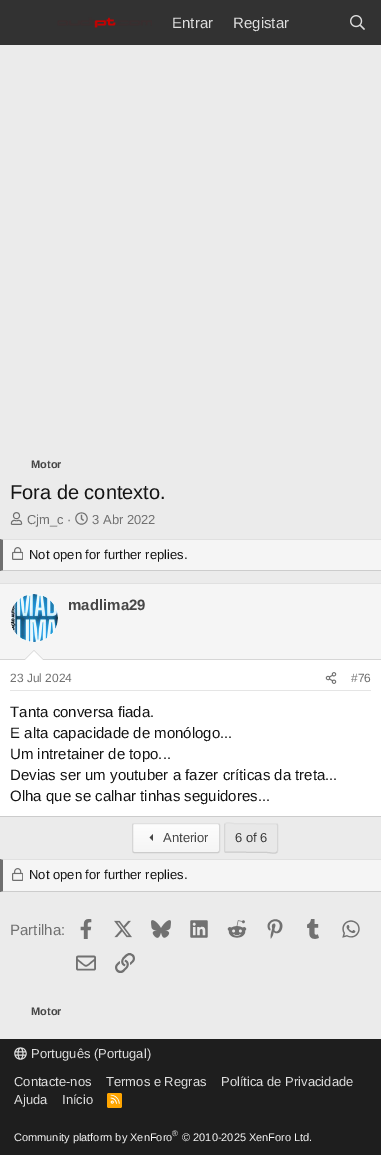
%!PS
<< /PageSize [381 1155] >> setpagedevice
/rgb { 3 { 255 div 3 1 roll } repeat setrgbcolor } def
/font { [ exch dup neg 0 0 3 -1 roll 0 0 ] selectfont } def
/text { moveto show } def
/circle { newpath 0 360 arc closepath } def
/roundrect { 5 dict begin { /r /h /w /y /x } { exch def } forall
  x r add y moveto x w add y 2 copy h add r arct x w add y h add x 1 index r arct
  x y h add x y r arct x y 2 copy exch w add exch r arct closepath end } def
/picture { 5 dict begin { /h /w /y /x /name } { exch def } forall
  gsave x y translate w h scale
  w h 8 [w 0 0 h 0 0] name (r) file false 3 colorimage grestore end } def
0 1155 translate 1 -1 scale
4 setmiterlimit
235 235 235 rgb
0 0 381 1155 rectfill
50 50 50 rgb
0 0 381 45 rectfill
(img_01.rgb) 57 17 95 11 picture
(img_02.rgb) 350 15 15 15 picture
(img_03.rgb) 10 512 13 13 picture
(img_04.rgb) 75 512 13 13 picture
245 245 245 rgb
0 539 381 32 rectfill
224 224 224 rgb
0 539 moveto 381 0 rlineto 0 1 rlineto -378 0 rlineto closepath fill
204 204 204 rgb
381 571 moveto -381 0 rlineto 3 -1 rlineto 378 0 rlineto closepath fill
111 111 111 rgb
0 571 moveto 0 -32 rlineto 3 1 rlineto 0 30 rlineto closepath fill
(img_05.rgb) 12 547 11 13 picture
255 255 255 rgb
0 660 381 156 rectfill
224 224 224 rgb
0 583 381 1 rectfill
204 204 204 rgb
0 816 381 1 rectfill
245 245 245 rgb
0 584 381 75 rectfill
214 214 214 rgb
0 659 381 1 rectfill
255 255 255 rgb
34 618 24 circle fill
(img_06.rgb) 10 594 48 48 picture
214 214 214 rgb
44 660 moveto -20 0 rlineto 10 -10 rlineto closepath fill
255 255 255 rgb
43 660 moveto -18 0 rlineto 9 -9 rlineto closepath fill
229 229 229 rgb
10 690 361 1 rectfill
(img_07.rgb) 325 672 12 12 picture
gsave
132 823 88 30 2 roundrect clip newpath
gsave 132 824 moveto 88 0 rlineto 0 28 rlineto -88 0 rlineto closepath clip newpath
<< /ShadingType 2 /ColorSpace /DeviceRGB /Coords [176 852 176 824] /Extend [true true] /Function << /FunctionType 2 /Domain [0 1] /C0 [0.961 0.961 0.961] /C1 [0.992 0.992 0.992] /N 1 >> >> shfill grestore
grestore
224 224 224 rgb
133 824 moveto 1 -0.5 rlineto 84 0 rlineto 1 0.5 rlineto stroke
214 214 214 rgb
219 824 moveto 0.5 1 rlineto 0 26 rlineto -0.5 1 rlineto stroke
204 204 204 rgb
219 852 moveto -1 0.5 rlineto -84 0 rlineto -1 -0.5 rlineto stroke
214 214 214 rgb
133 852 moveto -0.5 -1 rlineto 0 -26 rlineto 0.5 -1 rlineto stroke
(img_08.rgb) 149 834 4 7 picture
232 232 232 rgb
224 823 54 30 2 roundrect fill
224 224 224 rgb
225 824 moveto 2 -2.5 6 -0.5 9.5 -0.5 rcurveto 42.5 0.5 rlineto stroke
214 214 214 rgb
277 824 moveto 0.5 1 rlineto 0 26 rlineto -0.5 1 rlineto stroke
204 204 204 rgb
277 852 moveto -2 2.5 -6 0.5 -9.5 0.5 rcurveto -42.5 -0.5 rlineto stroke
214 214 214 rgb
225 852 moveto -0.5 -1 rlineto 0 -26 rlineto 0.5 -1 rlineto stroke
245 245 245 rgb
0 859 381 33 rectfill
224 224 224 rgb
0 859 moveto 381 0 rlineto 0 1 rlineto -378 0 rlineto closepath fill
204 204 204 rgb
381 892 moveto -381 0 rlineto 3 -1 rlineto 378 0 rlineto closepath fill
111 111 111 rgb
0 892 moveto 0 -33 rlineto 3 1 rlineto 0 31 rlineto closepath fill
(img_05.rgb) 12 868 11 13 picture
(img_09.rgb) 80 919 12 20 picture
(img_10.rgb) 114 920 18 18 picture
(img_11.rgb) 151 920 20 18 picture
(img_12.rgb) 190 920 18 18 picture
(img_13.rgb) 227 920 20 18 picture
(img_14.rgb) 267 919 16 20 picture
(img_15.rgb) 307 919 12 20 picture
(img_16.rgb) 342 920 18 18 picture
(img_17.rgb) 76 955 20 16 picture
(img_18.rgb) 115 953 20 20 picture
30 30 30 rgb
0 1039 381 116 rectfill
(img_19.rgb) 14 1047 13 13 picture
255 165 0 rgb
107 1093 15 15 2 roundrect fill
(img_20.rgb) 110 1094 10 10 picture
/LiberationSans-Regular 15 font
222 222 222 rgb
(Entrar) 172 28 text
(Registar) 233 28 text
/LiberationSans-Bold 11 font
70 70 70 rgb
(Motor) 31 468 text
/LiberationSans-Regular 20 font
20 20 20 rgb
(Fora de contexto.) 10 499 text
/LiberationSans-Regular 13 font
113 113 113 rgb
(Cjm_c ·) 27 524 text
(3 Abr 2022) 92 524 text
20 20 20 rgb
(Not open for further replies.) 29 559 text
/LiberationSans-Bold 15 font
70 70 70 rgb
(madlima29) 68 610 text
/LiberationSans-Regular 12 font
113 113 113 rgb
(23 Jul 2024) 10 682 text
(#76) 351 682 text
/LiberationSans-Regular 15 font
20 20 20 rgb
(Tanta conversa fiada.) 10 717 text
(E alta capacidade de monólogo...) 10 738 text
(Um intretainer de topo...) 10 759 text
(Devias ser um youtuber a fazer críticas da treta...) 10 780 text
(Olha que se calhar tinhas seguidores...) 10 801 text
/LiberationSans-Regular 13 font
70 70 70 rgb
(Anterior) 163 842 text
55 55 55 rgb
(6 of 6) 235 842 text
20 20 20 rgb
(Not open for further replies.) 29 879 text
/LiberationSans-Regular 15 font
113 113 113 rgb
(Partilha:) 10 935 text
/LiberationSans-Bold 11 font
70 70 70 rgb
(Motor) 31 1015 text
/LiberationSans-Regular 13 font
222 222 222 rgb
(Português \(Portugal\)) 31 1058 text
(Contacte-nos) 14 1086 text
(Termos e Regras) 106 1086 text
(Política de Privacidade) 221 1086 text
(Ajuda) 14 1104 text
(Início) 62 1104 text
/LiberationSans-Regular 11 font
245 245 245 rgb
(Community platform by XenForo) 14 1141 text
/LiberationSans-Regular 8 font
(®) 172 1136 text
/LiberationSans-Regular 11 font
(© 2010-2025 XenForo Ltd.) 182 1141 text
showpage
